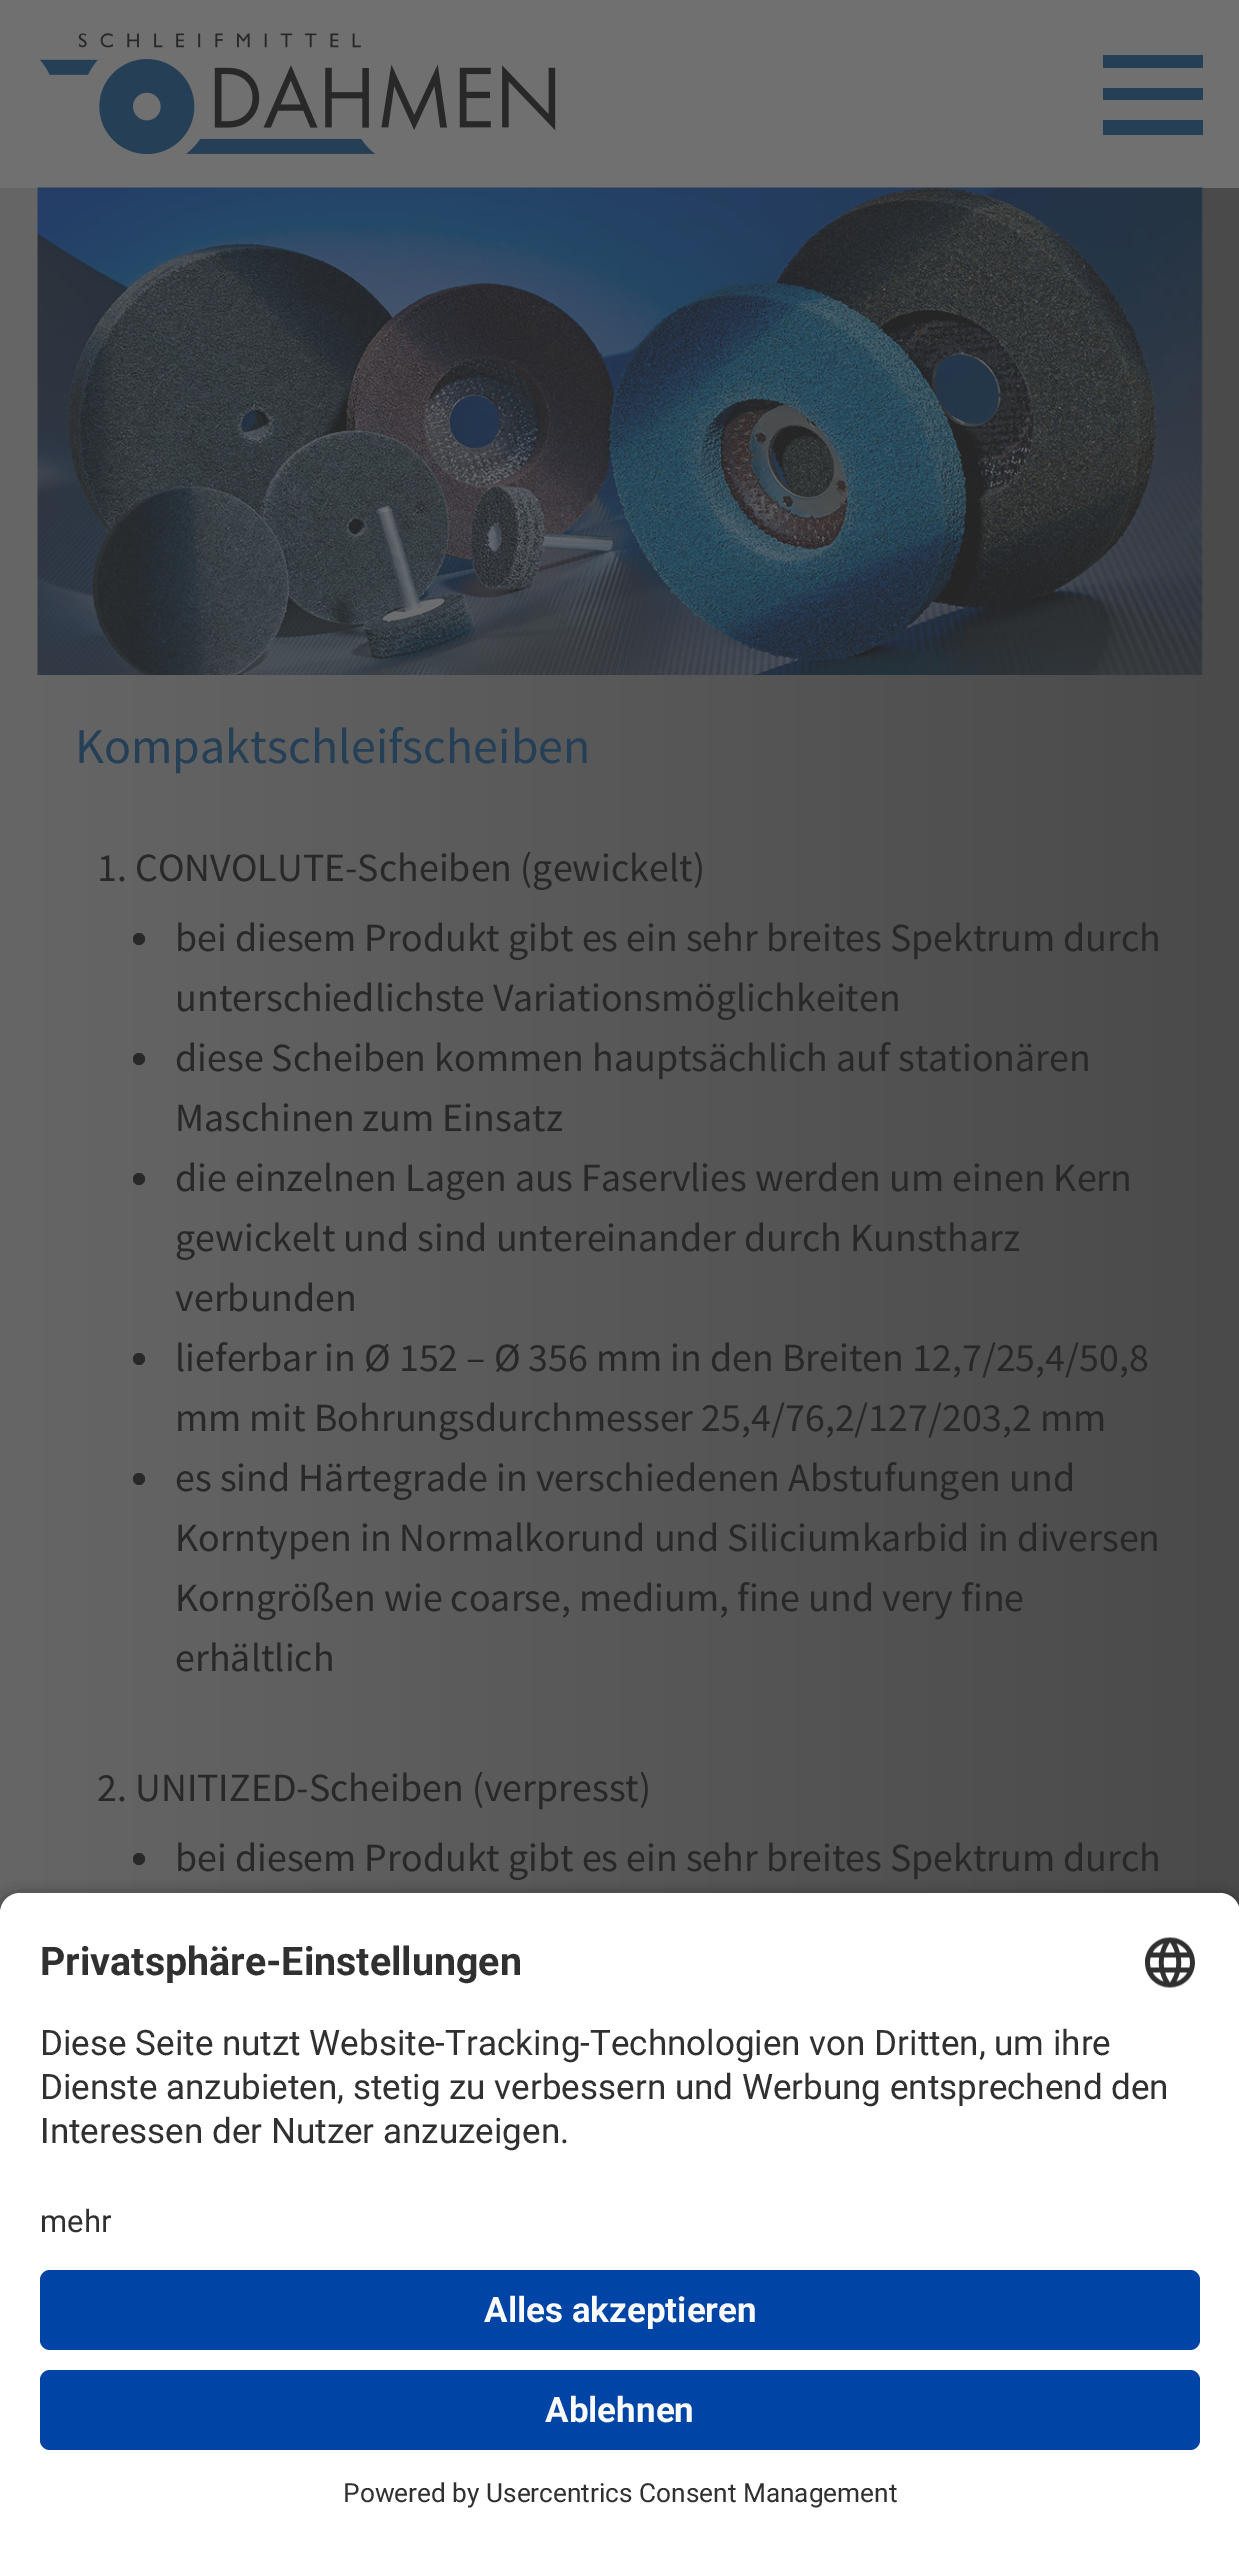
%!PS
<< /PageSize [1239 2550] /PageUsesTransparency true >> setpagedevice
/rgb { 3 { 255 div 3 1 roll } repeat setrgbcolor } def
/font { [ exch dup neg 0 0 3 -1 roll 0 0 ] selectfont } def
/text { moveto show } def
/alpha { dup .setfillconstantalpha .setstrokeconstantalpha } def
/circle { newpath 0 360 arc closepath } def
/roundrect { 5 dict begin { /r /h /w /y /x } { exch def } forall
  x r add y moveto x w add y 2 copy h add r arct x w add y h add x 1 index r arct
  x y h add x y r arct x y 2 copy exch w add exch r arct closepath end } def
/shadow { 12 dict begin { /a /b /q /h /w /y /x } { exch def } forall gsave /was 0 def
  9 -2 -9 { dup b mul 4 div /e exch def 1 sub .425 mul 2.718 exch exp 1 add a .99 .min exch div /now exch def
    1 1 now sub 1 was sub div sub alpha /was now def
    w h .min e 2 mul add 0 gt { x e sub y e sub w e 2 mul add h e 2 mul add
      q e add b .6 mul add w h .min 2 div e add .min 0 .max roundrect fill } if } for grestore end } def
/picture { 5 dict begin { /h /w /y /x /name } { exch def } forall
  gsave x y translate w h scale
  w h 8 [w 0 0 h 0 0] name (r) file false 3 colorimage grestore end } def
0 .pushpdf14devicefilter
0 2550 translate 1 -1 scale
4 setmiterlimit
255 255 255 rgb
0 0 1239 2550 rectfill
gsave 0 188 moveto 1239 0 rlineto 0 1725 rlineto -1239 0 rlineto closepath clip newpath
<< /ShadingType 2 /ColorSpace /DeviceRGB /Coords [0 2080 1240 2080] /Extend [true true] /Function << /FunctionType 2 /Domain [0 1] /C0 [0.4 0.4 0.4] /C1 [0.29 0.29 0.29] /N 1 >> >> shfill grestore
112 112 112 rgb
0 0 1239 188 rectfill
(img_01.rgb) 40 33 516 122 picture
36 63 86 rgb
1103 55 100 13 rectfill
1103 88 100 12 rectfill
1103 120 100 15 rectfill
(img_02.rgb) 37 187 1166 488 picture
40 40 41 rgb
139 939 6 circle fill
139 1059 6 circle fill
139 1179 6 circle fill
139 1359 6 circle fill
139 1479 6 circle fill
139 1859 6 circle fill
0 0 0 rgb
0 1900 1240 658 20 9 0.8 shadow
255 255 255 rgb
20 1893 moveto 1200 0 rlineto 11 0 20 9 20 20 rcurveto 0 292 rlineto -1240 0 rlineto 0 -292 rlineto 0 -11 9 -20 20 -20 rcurveto closepath fill
(img_03.rgb) 1145 1937 50 51 picture
0 2205 1239 345 rectfill
0 69 165 rgb
40 2270 1160 80 10 roundrect fill
40 2370 1160 80 10 roundrect fill
/SourceSansPro-Regular 50 font
36 63 86 rgb
(Kompaktschleifscheiben) 75 763 text
/SourceSansPro-Regular 40 font
40 40 41 rgb
(1. CONVOLUTE-Scheiben \(gewickelt\)) 97 881 text
(bei diesem Produkt gibt es ein sehr breites Spektrum durch) 175 951 text
(unterschiedlichste Variationsmöglichkeiten) 175 1011 text
(diese Scheiben kommen hauptsächlich auf stationären) 175 1071 text
(Maschinen zum Einsatz) 175 1131 text
(die einzelnen Lagen aus Faservlies werden um einen Kern) 175 1191 text
(gewickelt und sind untereinander durch Kunstharz) 175 1251 text
(verbunden) 175 1311 text
(lieferbar in Ø 152 – Ø 356 mm in den Breiten 12,7/25,4/50,8) 175 1371 text
(mm mit Bohrungsdurchmesser 25,4/76,2/127/203,2 mm) 175 1431 text
(es sind Härtegrade in verschiedenen Abstufungen und) 175 1491 text
(Korntypen in Normalkorund und Siliciumkarbid in diversen) 175 1551 text
(Korngrößen wie coarse, medium, fine und very fine) 175 1611 text
(erhältlich) 175 1671 text
(2. UNITIZED-Scheiben \(verpresst\)) 97 1801 text
(bei diesem Produkt gibt es ein sehr breites Spektrum durch) 175 1871 text
/Roboto-Bold 39.4 font
48 48 48 rgb
(Privatsphäre-Einstellungen) 40 1975 text
/Roboto-Regular 35 font
(Diese Seite nutzt Website-Tracking-Technologien von Dritten, um ihre) 40 2055 text
(Dienste anzubieten, stetig zu verbessern und Werbung entsprechend den) 40 2099 text
(Interessen der Nutzer anzuzeigen.) 40 2143 text
/Roboto-Regular 31 font
(mehr) 40 2232 text
/Roboto-Bold 35 font
250 250 250 rgb
(Alles akzeptieren) 484 2322 text
(Ablehnen) 545 2422 text
/Roboto-Regular 26.25 font
48 48 48 rgb
(Powered by Usercentrics Consent Management) 343 2502 text
.poppdf14devicefilter showpage
